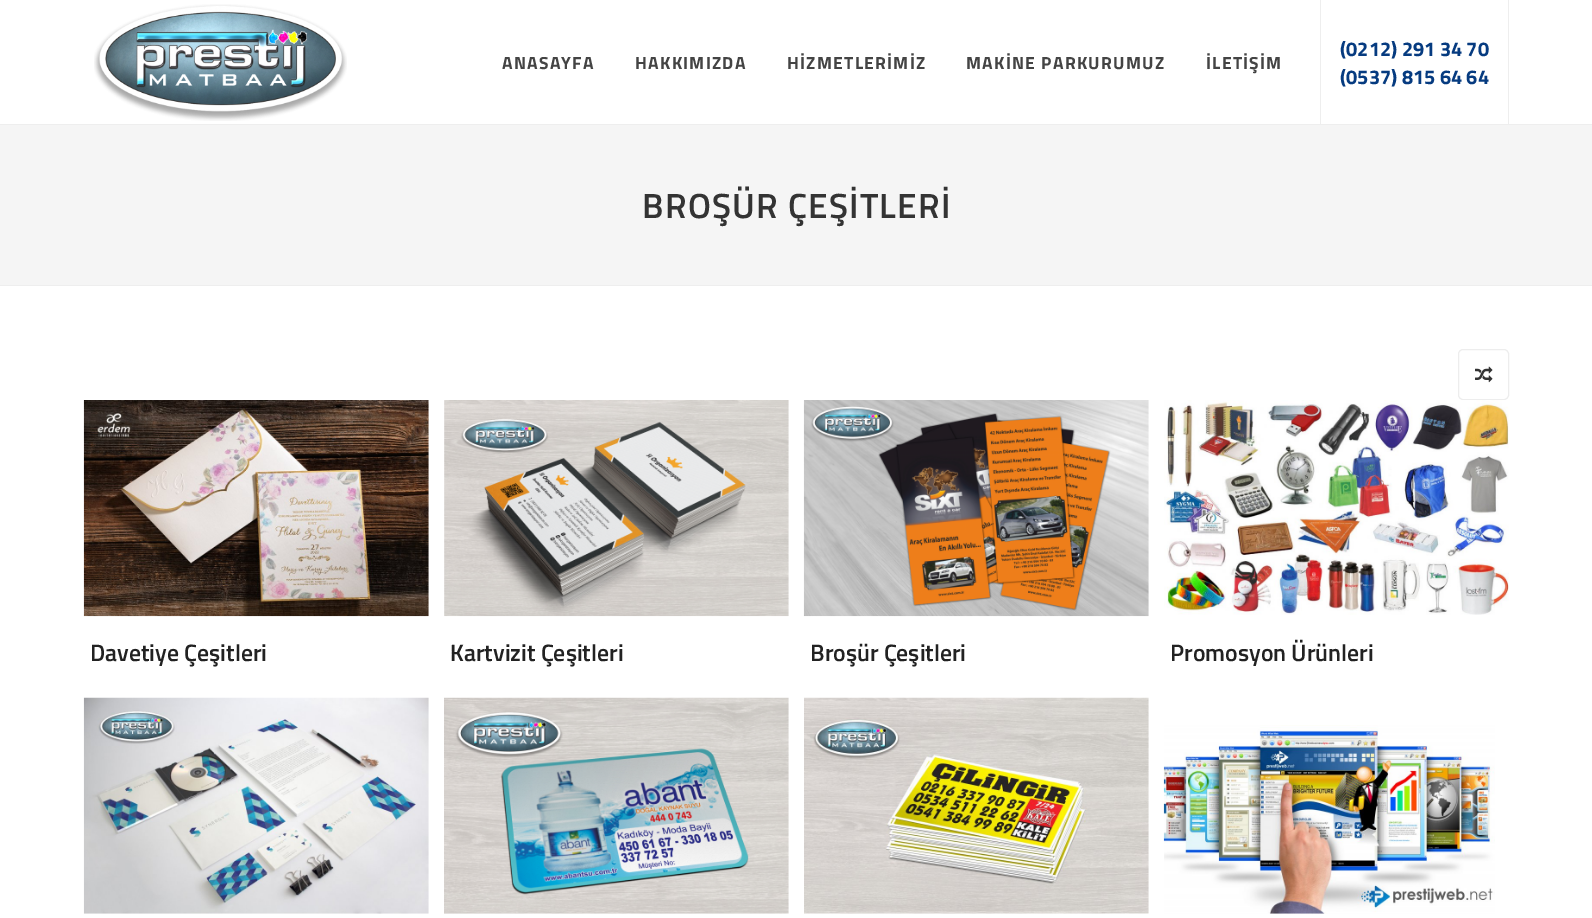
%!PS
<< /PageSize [1592 918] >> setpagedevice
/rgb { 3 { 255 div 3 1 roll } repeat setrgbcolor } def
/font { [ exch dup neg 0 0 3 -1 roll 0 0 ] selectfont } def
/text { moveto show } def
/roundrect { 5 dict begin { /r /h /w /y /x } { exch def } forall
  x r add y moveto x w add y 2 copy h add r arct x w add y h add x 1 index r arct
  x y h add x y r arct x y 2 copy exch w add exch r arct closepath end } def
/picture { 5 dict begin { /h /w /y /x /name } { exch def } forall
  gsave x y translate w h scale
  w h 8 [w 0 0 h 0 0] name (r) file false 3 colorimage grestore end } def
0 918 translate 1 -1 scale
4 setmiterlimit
255 255 255 rgb
0 0 1592 918 rectfill
238 238 238 rgb
0 124 1592 1 rectfill
(img_01.rgb) 94 4 253 117 picture
1320 0 1 125 rectfill
1508 0 1 125 rectfill
245 245 245 rgb
0 125 1592 160 rectfill
238 238 238 rgb
0 285 1592 1 rectfill
237 237 237 rgb
1458.5 349.5 50 50 4.5 roundrect stroke
(img_02.rgb) 1475 366 18 17 picture
(img_03.rgb) 83 400 346 217 picture
(img_04.rgb) 444 400 345 217 picture
(img_05.rgb) 803 400 346 217 picture
(img_06.rgb) 1164 400 345 215 picture
(img_07.rgb) 83 697 346 217 picture
(img_08.rgb) 444 697 345 217 picture
(img_09.rgb) 804 697 345 217 picture
(img_10.rgb) 1163 725 332 189 picture
/TitilliumWeb-Bold 17.5 font
68 68 68 rgb
502 69 moveto 1.25 0 (ANASAYFA) ashow
635 69 moveto 1.25 0 (HAKKIMIZDA) ashow
787 69 moveto 1.25 0 (HİZMETLERİMİZ) ashow
966 69 moveto 1.25 0 (MAKİNE PARKURUMUZ) ashow
1206 69 moveto 1.25 0 (İLETİŞİM) ashow
/TitilliumWeb-Bold 20 font
6 59 128 rgb
(\(0212\) 291 34 70) 1340 56 text
(\(0537\) 815 64 64) 1340 84 text
/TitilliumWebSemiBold-SemiBold 35 font
51 51 51 rgb
642 218 moveto 1.25 0 (BROŞÜR ÇEŞİTLERİ) ashow
/TitilliumWebSemiBold-SemiBold 23.75 font
34 34 34 rgb
(Davetiye Çeşitleri) 90 661 text
(Kartvizit Çeşitleri) 450 661 text
(Broşür Çeşitleri) 810 661 text
(Promosyon Ürünleri) 1170 661 text
showpage
